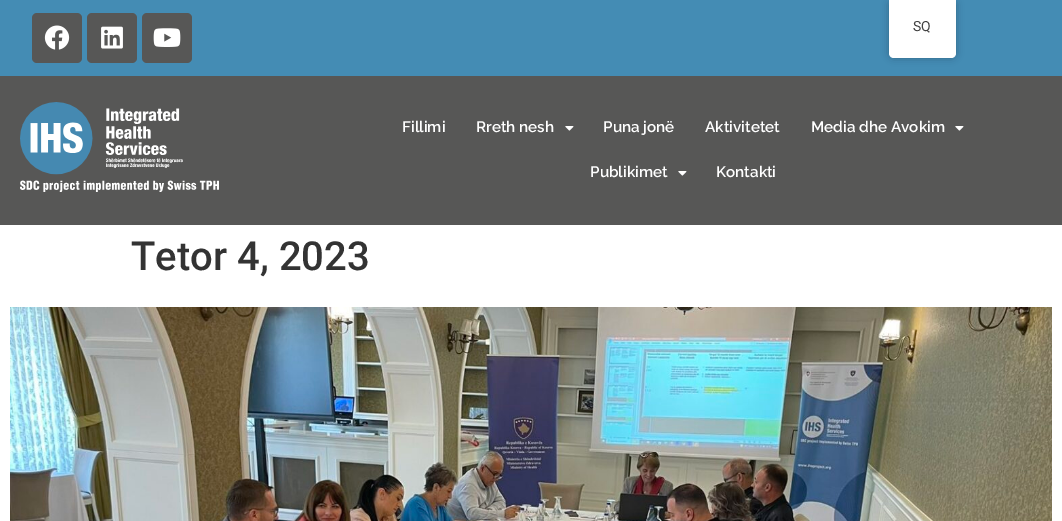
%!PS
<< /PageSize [1062 521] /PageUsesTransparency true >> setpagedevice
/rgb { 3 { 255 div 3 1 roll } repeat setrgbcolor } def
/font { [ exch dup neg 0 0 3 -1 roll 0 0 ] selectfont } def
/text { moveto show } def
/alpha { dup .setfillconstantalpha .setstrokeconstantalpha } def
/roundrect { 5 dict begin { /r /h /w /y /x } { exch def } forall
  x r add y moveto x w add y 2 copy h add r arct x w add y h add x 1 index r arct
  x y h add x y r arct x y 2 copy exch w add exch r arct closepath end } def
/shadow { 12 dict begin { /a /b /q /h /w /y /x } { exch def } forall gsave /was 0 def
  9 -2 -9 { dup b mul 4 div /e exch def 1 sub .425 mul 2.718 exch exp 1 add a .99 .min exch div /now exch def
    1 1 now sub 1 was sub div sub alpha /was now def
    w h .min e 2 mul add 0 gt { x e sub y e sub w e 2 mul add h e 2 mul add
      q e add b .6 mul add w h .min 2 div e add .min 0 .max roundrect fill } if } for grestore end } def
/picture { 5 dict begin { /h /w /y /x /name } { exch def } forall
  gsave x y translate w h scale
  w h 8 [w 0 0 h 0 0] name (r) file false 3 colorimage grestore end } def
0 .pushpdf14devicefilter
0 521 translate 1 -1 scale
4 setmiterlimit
255 255 255 rgb
0 0 1062 521 rectfill
68 140 180 rgb
0 0 1062 76 rectfill
0 0 0 rgb
889 0 67 58 5 4 0.25 shadow
255 255 255 rgb
889 0 moveto 67 0 rlineto 0 53 rlineto 0 3 -2 5 -5 5 rcurveto -57 0 rlineto -3 0 -5 -2 -5 -5 rcurveto closepath fill
87 87 86 rgb
32 13 50 50 5 roundrect fill
(img_01.rgb) 44 25 26 25 picture
87 13 50 50 5 roundrect fill
(img_02.rgb) 101 26 22 23 picture
142 13 50 50 5 roundrect fill
(img_03.rgb) 153 28 28 19 picture
0 76 1062 149 rectfill
(img_04.rgb) 20 102 199 90 picture
(img_05.rgb) 565 126 9 5 picture
(img_05.rgb) 955 126 9 5 picture
(img_05.rgb) 678 171 9 5 picture
(img_06.rgb) 10 307 1042 214 picture
/Roboto-Regular 14 font
64 64 64 rgb
(SQ) 913 31 text
/Raleway-SemiBold 15.25 font
255 255 255 rgb
(Fillimi) 402 132 text
(Rreth nesh) 476 132 text
(Puna jonë) 603 132 text
(Aktivitetet) 705 132 text
(Media dhe Avokim) 811 132 text
(Publikimet) 590 177 text
(Kontakti) 716 177 text
/Roboto-Medium 40 font
51 51 51 rgb
(Tetor 4, 2023) 131 270 text
.poppdf14devicefilter showpage
